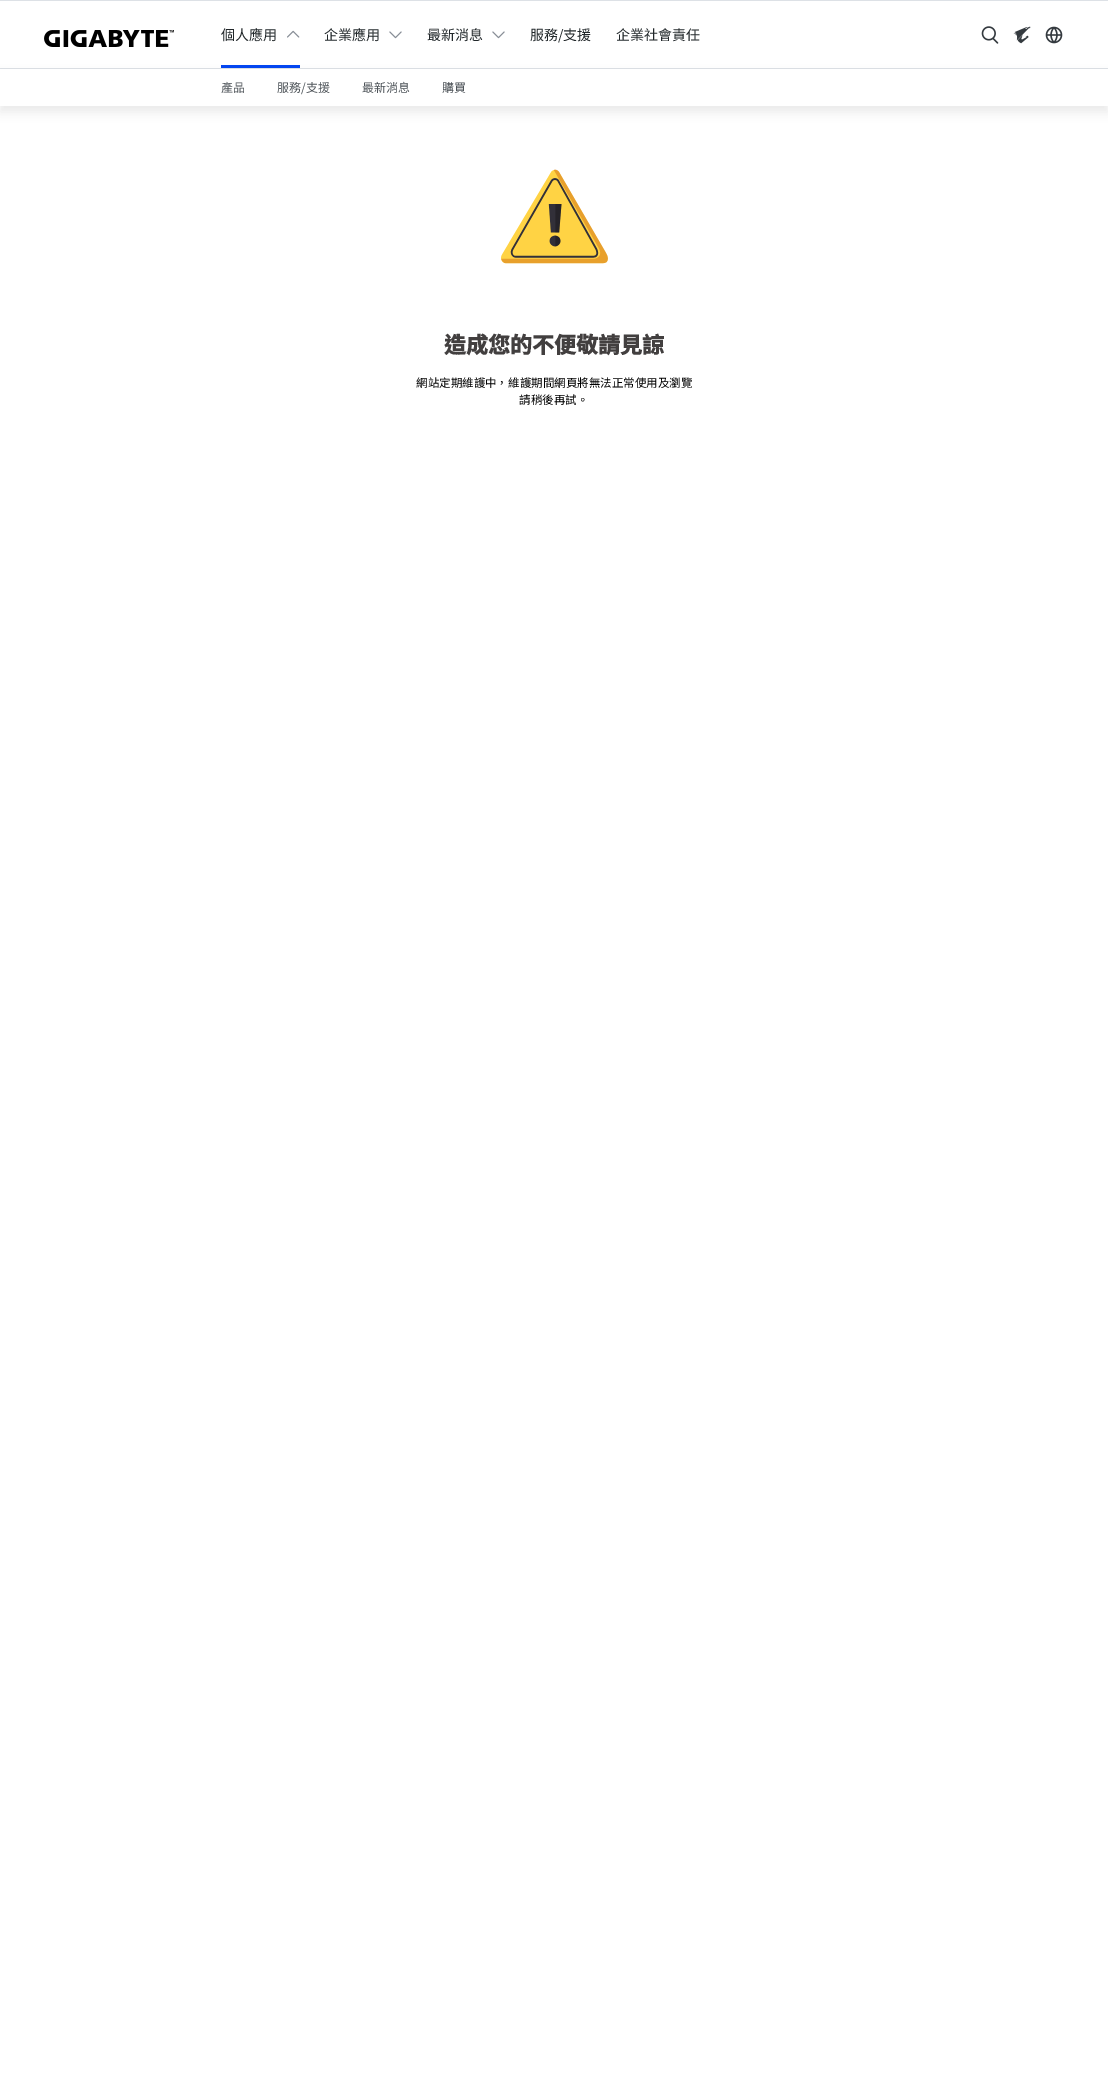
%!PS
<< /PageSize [1108 2099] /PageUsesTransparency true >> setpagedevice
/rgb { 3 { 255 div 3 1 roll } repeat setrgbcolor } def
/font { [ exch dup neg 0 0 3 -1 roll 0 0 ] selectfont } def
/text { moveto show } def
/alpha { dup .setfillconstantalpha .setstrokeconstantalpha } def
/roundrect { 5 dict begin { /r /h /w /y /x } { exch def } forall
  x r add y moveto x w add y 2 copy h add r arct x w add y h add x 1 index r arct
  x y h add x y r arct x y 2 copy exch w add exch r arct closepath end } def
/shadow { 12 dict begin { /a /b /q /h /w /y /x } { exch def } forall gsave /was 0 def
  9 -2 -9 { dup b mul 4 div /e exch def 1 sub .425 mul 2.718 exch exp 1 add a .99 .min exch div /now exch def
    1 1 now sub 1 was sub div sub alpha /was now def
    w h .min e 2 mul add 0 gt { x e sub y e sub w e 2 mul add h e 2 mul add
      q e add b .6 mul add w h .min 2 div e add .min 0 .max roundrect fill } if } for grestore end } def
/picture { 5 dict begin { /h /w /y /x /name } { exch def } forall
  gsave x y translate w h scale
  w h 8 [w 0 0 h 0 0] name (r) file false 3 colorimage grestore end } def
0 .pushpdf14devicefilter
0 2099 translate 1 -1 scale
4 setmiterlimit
255 255 255 rgb
0 0 1108 2099 rectfill
221 225 230 rgb
0 0 1108 1 rectfill
0 68 1108 1 rectfill
(img_01.rgb) 44 30 130 17 picture
(img_02.rgb) 287 30 13 8 picture
4 70 242 rgb
221 65 79 3 rectfill
(img_03.rgb) 389 31 13 8 picture
(img_03.rgb) 492 31 13 8 picture
(img_04.rgb) 981 26 18 18 picture
(img_05.rgb) 1013 26 18 18 picture
(img_06.rgb) 1045 26 18 18 picture
0 0 0 rgb
0 75 1108 37 0 5 0.08 shadow
255 255 255 rgb
0 69 1108 37 rectfill
(img_07.rgb) 501 169 107 95 picture
/NotoSansTC-Thin 14 font
33 39 42 rgb
(個人應用) 221 40 text
(企業應用) 324 40 text
(最新消息) 427 40 text
(服務/支援) 530 40 text
(企業社會責任) 616 40 text
/NotoSansTC-Thin 12 font
77 83 88 rgb
(產品) 221 92 text
(服務/支援) 277 92 text
(最新消息) 362 92 text
(購買) 442 92 text
/NotoSansTC-Bold 22 font
66 63 63 rgb
(造成您的不便敬請見諒) 444 353 text
/NotoSansTC-Thin 11.5 font
0 0 0 rgb
(網站定期維護中) 416 387 text
/NotoSansCJKTC-Regular 11.5 font
(，) 496 387 text
/NotoSansTC-Thin 11.5 font
(維護期間網頁將無法正常使用及瀏覽) 508 387 text
(請稍後再試。) 519 404 text
.poppdf14devicefilter showpage
